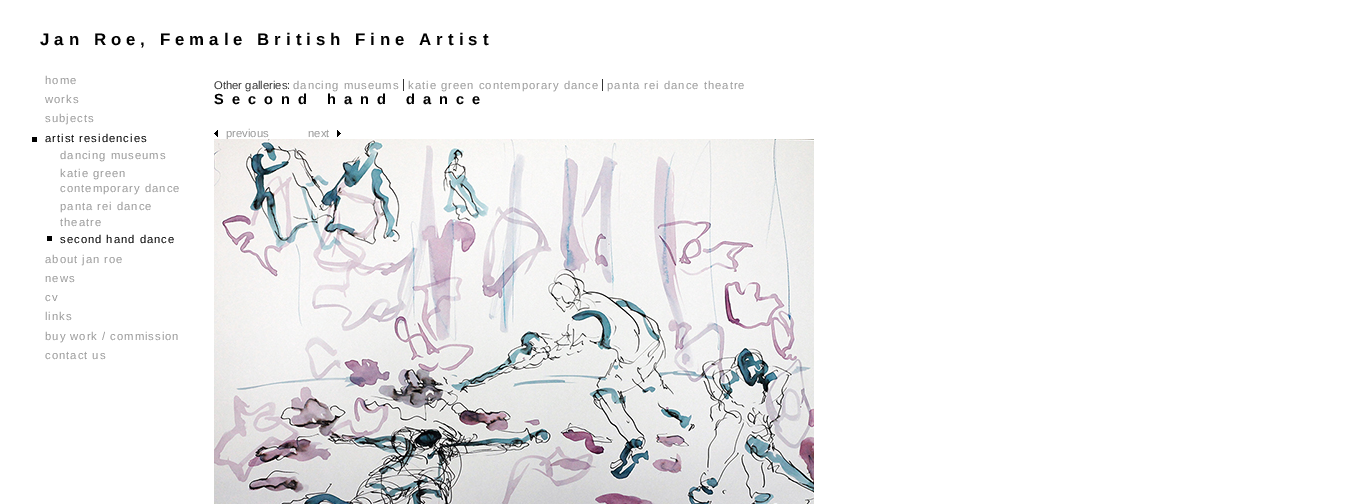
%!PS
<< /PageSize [1368 504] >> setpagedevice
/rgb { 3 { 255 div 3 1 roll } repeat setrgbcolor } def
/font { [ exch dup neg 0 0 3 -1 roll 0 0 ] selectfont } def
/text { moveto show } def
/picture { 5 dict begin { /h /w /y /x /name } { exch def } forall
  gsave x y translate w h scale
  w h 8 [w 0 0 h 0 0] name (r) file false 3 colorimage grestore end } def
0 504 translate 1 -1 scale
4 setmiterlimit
255 255 255 rgb
0 0 1368 504 rectfill
0 0 0 rgb
32 137 5 5 rectfill
51 51 51 rgb
403 79 1 12 rectfill
602 79 1 12 rectfill
(img_01.rgb) 214 130 4 7 picture
(img_02.rgb) 337 130 4 7 picture
0 0 0 rgb
47 236 5 5 rectfill
/LiberationSans-Bold 16.8 font
40 45 moveto 5 0 (Jan Roe, Female British Fine Artist) ashow
/LiberationSans-Regular 11.25 font
153 153 153 rgb
45 84 moveto 1 0 (home) ashow
45 103 moveto 1 0 (works) ashow
45 122 moveto 1 0 (subjects) ashow
0 0 0 rgb
45 142 moveto 1 0 (artist residencies) ashow
153 153 153 rgb
45 263 moveto 1 0 (about jan roe) ashow
45 282 moveto 1 0 (news) ashow
45 301 moveto 1 0 (cv) ashow
45 320 moveto 1 0 (links) ashow
45 340 moveto 1 0 (buy work / commission) ashow
45 359 moveto 1 0 (contact us) ashow
51 51 51 rgb
(Other galleries:) 214 89 text
153 153 153 rgb
293 89 moveto 1 0 (dancing museums) ashow
408 89 moveto 1 0 (katie green contemporary dance) ashow
607 89 moveto 1 0 (panta rei dance theatre) ashow
/LiberationSans-Bold 14.6 font
0 0 0 rgb
214 104 moveto 8 0 (Second hand dance) ashow
/LiberationSans-Regular 11.25 font
153 153 153 rgb
(previous) 226 137 text
(next) 308 137 text
(img_03.rgb) 214 139 600 365 picture
60 159 moveto 1 0 (dancing museums) ashow
60 177 moveto 1 0 (katie green) ashow
60 192 moveto 1 0 (contemporary dance) ashow
60 210 moveto 1 0 (panta rei dance) ashow
60 226 moveto 1 0 (theatre) ashow
0 0 0 rgb
60 243 moveto 1 0 (second hand dance) ashow
showpage
